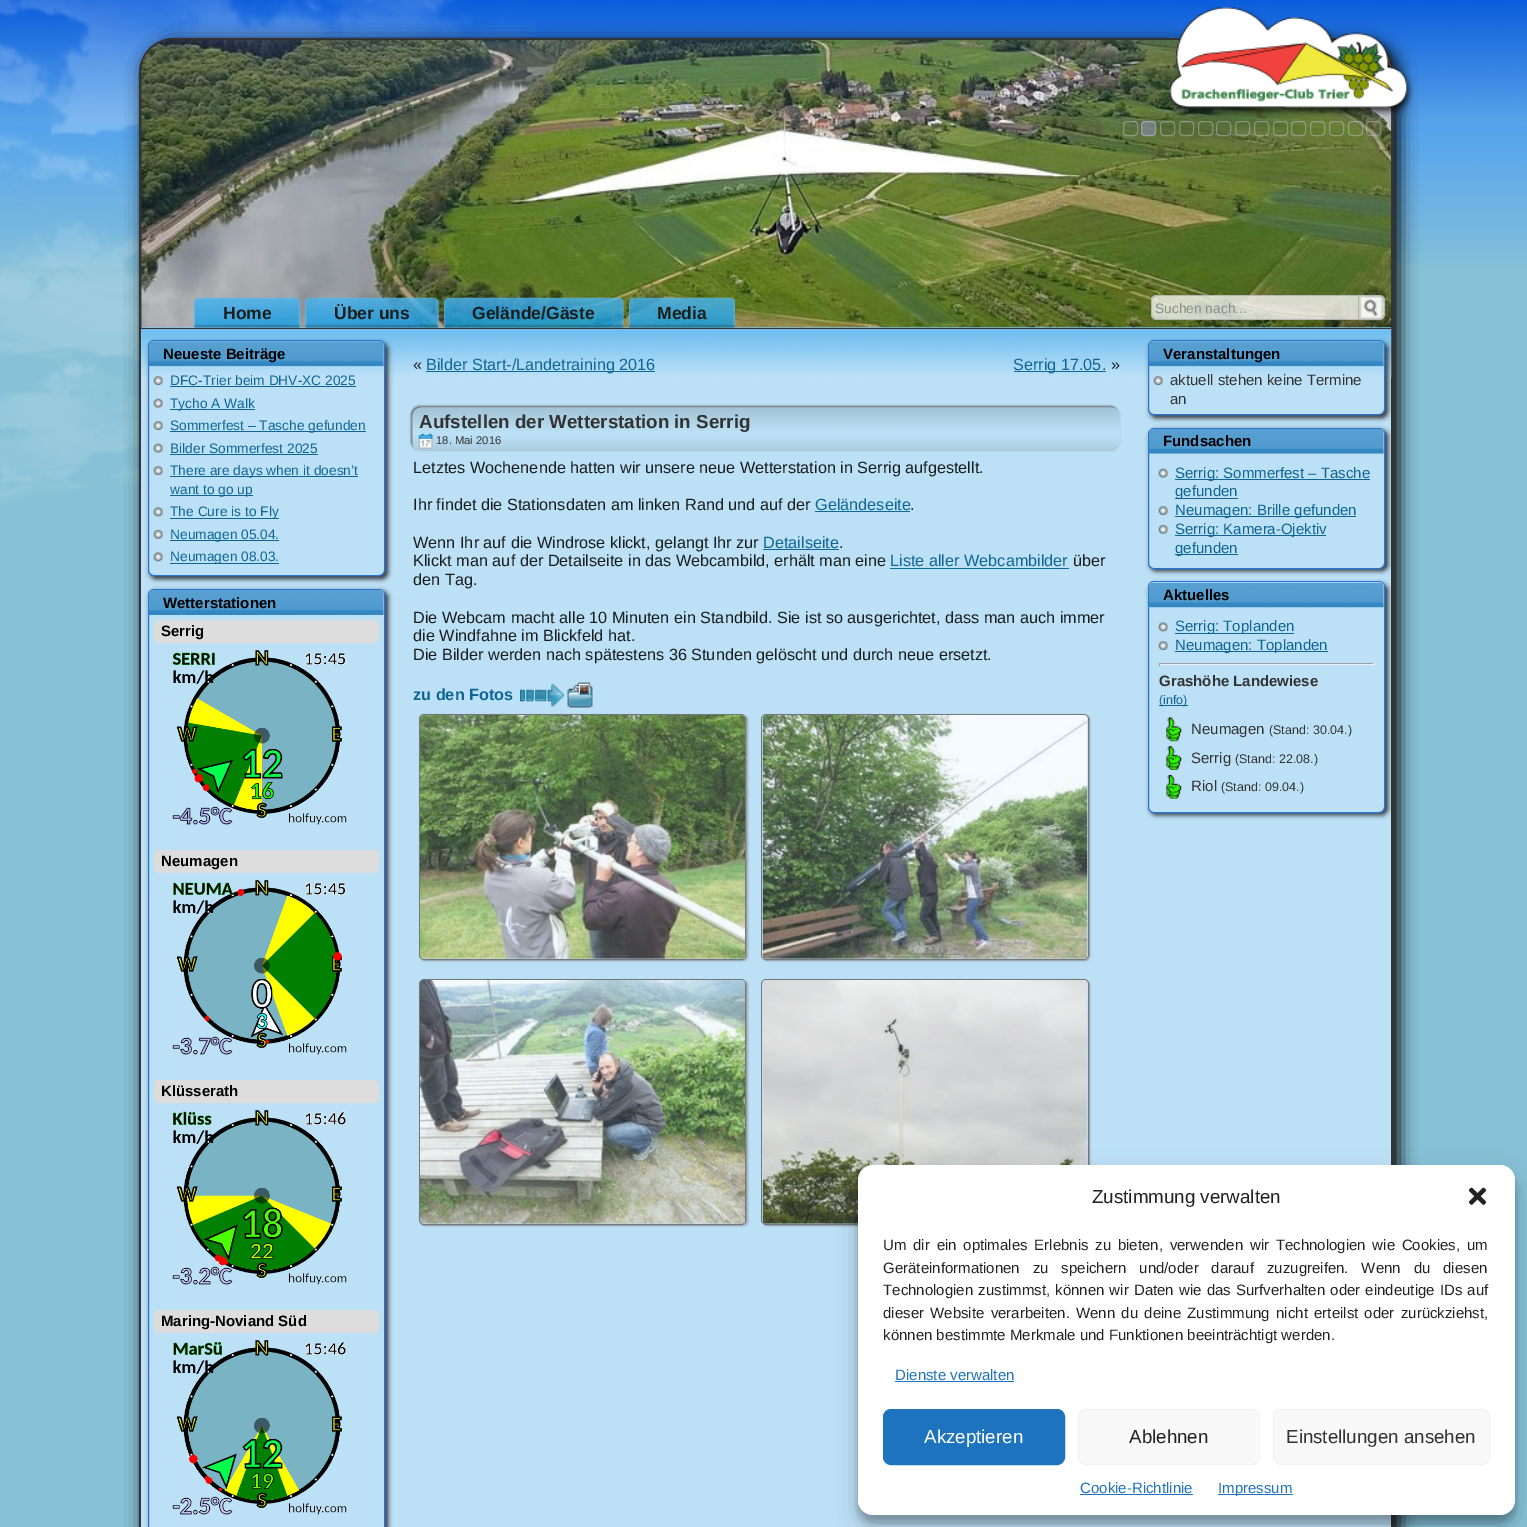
%!PS
<< /PageSize [1527 1527] /PageUsesTransparency true >> setpagedevice
/rgb { 3 { 255 div 3 1 roll } repeat setrgbcolor } def
/font { [ exch dup neg 0 0 3 -1 roll 0 0 ] selectfont } def
/text { moveto show } def
/alpha { dup .setfillconstantalpha .setstrokeconstantalpha } def
/roundrect { 5 dict begin { /r /h /w /y /x } { exch def } forall
  x r add y moveto x w add y 2 copy h add r arct x w add y h add x 1 index r arct
  x y h add x y r arct x y 2 copy exch w add exch r arct closepath end } def
/shadow { 12 dict begin { /a /b /q /h /w /y /x } { exch def } forall gsave /was 0 def
  9 -2 -9 { dup b mul 4 div /e exch def 1 sub .425 mul 2.718 exch exp 1 add a .99 .min exch div /now exch def
    1 1 now sub 1 was sub div sub alpha /was now def
    w h .min e 2 mul add 0 gt { x e sub y e sub w e 2 mul add h e 2 mul add
      q e add b .6 mul add w h .min 2 div e add .min 0 .max roundrect fill } if } for grestore end } def
/picture { 5 dict begin { /h /w /y /x /name } { exch def } forall
  gsave x y translate w h scale
  w h 8 [w 0 0 h 0 0] name (r) file false 3 colorimage grestore end } def
0 .pushpdf14devicefilter
0 1527 translate 1 -1 scale
4 setmiterlimit
135 193 215 rgb
0 0 1527 1527 rectfill
(img_01.rgb) 0 0 1527 265 picture
(img_02.rgb) 0 0 536 503 picture
0 0 0 rgb
144 43 1255 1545 34 9 1 shadow
51 51 51 rgb
3 setlinewidth
140.5 39.5 1252 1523 32.5 roundrect stroke
188 225 247 rgb
141 329 1250 1198 rectfill
(img_14.rgb) 141 327 1251 51 picture
(img_04.rgb) 141 40 1251 288 picture
(img_03.rgb) 1169 7 245 110 picture
0.35 alpha
221 221 255 rgb
1 setlinewidth
1123.5 121.5 14 14 3.5 roundrect stroke
170 170 255 rgb
1141 121 15 15 4 roundrect fill
221 221 255 rgb
1141.5 121.5 14 14 3.5 roundrect stroke
1160.5 121.5 14 14 3.5 roundrect stroke
1179.5 121.5 14 14 3.5 roundrect stroke
1198.5 121.5 14 14 3.5 roundrect stroke
1216.5 121.5 14 14 3.5 roundrect stroke
1235.5 121.5 14 14 3.5 roundrect stroke
1254.5 121.5 14 14 3.5 roundrect stroke
1273.5 121.5 14 14 3.5 roundrect stroke
1291.5 121.5 14 14 3.5 roundrect stroke
1310.5 121.5 14 14 3.5 roundrect stroke
1329.5 121.5 14 14 3.5 roundrect stroke
1348.5 121.5 14 14 3.5 roundrect stroke
1366.5 121.5 14 14 3.5 roundrect stroke
1 alpha
51 51 51 rgb
141 328 1250 1 rectfill
(img_05.rgb) 193 297 102 31 picture
(img_06.rgb) 295 297 5 31 picture
(img_07.rgb) 305 297 129 31 picture
(img_08.rgb) 433 297 6 31 picture
(img_09.rgb) 443 297 176 31 picture
(img_10.rgb) 618 297 6 31 picture
(img_11.rgb) 628 297 102 31 picture
(img_12.rgb) 730 297 5 31 picture
0.75 alpha
255 255 255 rgb
1157 295 moveto 201 0 rlineto 0 25 rlineto -201 0 rlineto -3.5 0 -6 -2.5 -6 -6 rcurveto 0 -13 rlineto 0 -3.5 2.5 -6 6 -6 rcurveto closepath fill
170 170 170 rgb
1158 295 moveto 200 0 rlineto 0 25 rlineto -200 0 rlineto -4 0 -7 -3 -7 -6 rcurveto 0 -13 rlineto 0 -3 3 -6 7 -6 rcurveto closepath 1158 296 moveto 200 0 rlineto 0 23 rlineto -200 0 rlineto -3 0 -6 -2 -6 -5 rcurveto 0 -13 rlineto 0 -3 3 -5 6 -5 rcurveto closepath eofill
255 255 255 rgb
1358 295 moveto 21 0 rlineto 3.5 0 6 2.5 6 6 rcurveto 0 13 rlineto 0 3.5 -2.5 6 -6 6 rcurveto -21 0 rlineto closepath fill
1 alpha
(img_13.rgb) 1361 297 21 21 picture
0.75 alpha
170 170 170 rgb
1358.5 295.5 moveto 20.5 0 rlineto 3 0 5.5 2.5 5.5 5.5 rcurveto 0 13 rlineto 0 3 -2.5 5.5 -5.5 5.5 rcurveto -20.5 0 rlineto closepath stroke
gsave
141 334 moveto 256 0 rlineto 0 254 rlineto -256 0 rlineto closepath 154 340 moveto 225 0 rlineto 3.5 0 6 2.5 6 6 rcurveto 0 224 rlineto 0 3.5 -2.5 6 -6 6 rcurveto -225 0 rlineto -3.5 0 -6 -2.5 -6 -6 rcurveto 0 -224 rlineto 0 -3.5 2.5 -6 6 -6 rcurveto closepath eoclip newpath
1 alpha
51 51 51 rgb
150 343 238 236 6 2.5 1 shadow
grestore
1 alpha
42 118 212 rgb
148.5 340.5 236 235 5.5 roundrect stroke
(img_15.rgb) 149 341 235 26 picture
(img_16.rgb) 153 376 10 9 picture
15 102 149 rgb
170 386 186 1 rectfill
(img_17.rgb) 153 398 10 10 picture
170 409 85 1 rectfill
(img_18.rgb) 153 421 10 9 picture
170 431 196 1 rectfill
(img_17.rgb) 153 443 10 10 picture
170 454 148 1 rectfill
(img_18.rgb) 153 466 10 9 picture
170 476 188 1 rectfill
170 495 83 1 rectfill
(img_19.rgb) 153 507 10 10 picture
170 518 109 1 rectfill
(img_20.rgb) 153 529 10 10 picture
170 540 109 1 rectfill
(img_19.rgb) 153 552 10 10 picture
170 563 109 1 rectfill
gsave
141 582 moveto 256 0 rlineto 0 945 rlineto -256 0 rlineto closepath 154 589 moveto 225 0 rlineto 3.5 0 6 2.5 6 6 rcurveto 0 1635 rlineto 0 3.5 -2.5 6 -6 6 rcurveto -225 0 rlineto -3.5 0 -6 -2.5 -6 -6 rcurveto 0 -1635 rlineto 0 -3.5 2.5 -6 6 -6 rcurveto closepath eoclip newpath
51 51 51 rgb
150 591 238 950 6 2.5 1 shadow
grestore
42 118 212 rgb
148.5 589.5 236 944 5.5 roundrect stroke
(img_21.rgb) 149 590 235 25 picture
221 221 221 rgb
154 620 225 23 6 roundrect fill
(img_22.rgb) 172 650 175 175 picture
154 850 225 23 6 roundrect fill
(img_23.rgb) 172 880 175 175 picture
154 1080 225 23 6 roundrect fill
(img_24.rgb) 172 1110 175 175 picture
154 1310 225 23 6 roundrect fill
(img_25.rgb) 172 1340 175 175 picture
15 105 153 rgb
426 371 229 1 rectfill
1014 371 92 1 rectfill
102 102 102 rgb
411 406 708 44 9 1 1 shadow
(img_26.rgb) 412 407 708 44 picture
(img_27.rgb) 418 433 15 16 picture
15 105 153 rgb
815 511 95 1 rectfill
763 549 76 1 rectfill
890 568 179 1 rectfill
(img_28.rgb) 520 682 73 26 picture
gsave
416 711 moveto 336 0 rlineto 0 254 rlineto -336 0 rlineto closepath 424 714 moveto 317 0 rlineto 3 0 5 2 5 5 rcurveto 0 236 rlineto 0 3 -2 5 -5 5 rcurveto -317 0 rlineto -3 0 -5 -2 -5 -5 rcurveto 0 -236 rlineto 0 -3 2 -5 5 -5 rcurveto closepath eoclip newpath
158 164 167 rgb
420 715 328 246 5 1 1 shadow
grestore
115 120 124 rgb
419.5 714.5 326 245 4.5 roundrect stroke
(img_29.rgb) 420 715 325 244 picture
gsave
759 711 moveto 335 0 rlineto 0 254 rlineto -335 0 rlineto closepath 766 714 moveto 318 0 rlineto 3 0 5 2 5 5 rcurveto 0 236 rlineto 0 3 -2 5 -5 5 rcurveto -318 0 rlineto -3 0 -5 -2 -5 -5 rcurveto 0 -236 rlineto 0 -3 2 -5 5 -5 rcurveto closepath eoclip newpath
158 164 167 rgb
763 715 327 246 5 1 1 shadow
grestore
761.5 714.5 327 245 4.5 roundrect stroke
(img_30.rgb) 762 715 326 244 picture
gsave
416 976 moveto 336 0 rlineto 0 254 rlineto -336 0 rlineto closepath 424 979 moveto 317 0 rlineto 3 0 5 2 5 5 rcurveto 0 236 rlineto 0 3 -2 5 -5 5 rcurveto -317 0 rlineto -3 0 -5 -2 -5 -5 rcurveto 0 -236 rlineto 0 -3 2 -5 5 -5 rcurveto closepath eoclip newpath
158 164 167 rgb
420 980 328 246 5 1 1 shadow
grestore
419.5 979.5 326 245 4.5 roundrect stroke
(img_31.rgb) 420 980 325 244 picture
gsave
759 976 moveto 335 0 rlineto 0 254 rlineto -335 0 rlineto closepath 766 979 moveto 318 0 rlineto 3 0 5 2 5 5 rcurveto 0 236 rlineto 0 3 -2 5 -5 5 rcurveto -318 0 rlineto -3 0 -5 -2 -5 -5 rcurveto 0 -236 rlineto 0 -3 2 -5 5 -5 rcurveto closepath eoclip newpath
158 164 167 rgb
763 980 327 246 5 1 1 shadow
grestore
761.5 979.5 327 245 4.5 roundrect stroke
(img_32.rgb) 762 980 326 244 picture
gsave
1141 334 moveto 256 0 rlineto 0 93 rlineto -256 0 rlineto closepath 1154 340 moveto 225 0 rlineto 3.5 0 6 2.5 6 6 rcurveto 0 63 rlineto 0 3.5 -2.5 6 -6 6 rcurveto -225 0 rlineto -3.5 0 -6 -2.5 -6 -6 rcurveto 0 -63 rlineto 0 -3.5 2.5 -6 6 -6 rcurveto closepath eoclip newpath
51 51 51 rgb
1150 343 238 75 6 2.5 1 shadow
grestore
42 118 212 rgb
1148.5 340.5 236 74 5.5 roundrect stroke
(img_33.rgb) 1149 341 235 26 picture
(img_34.rgb) 1153 376 10 9 picture
gsave
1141 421 moveto 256 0 rlineto 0 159 rlineto -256 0 rlineto closepath 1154 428 moveto 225 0 rlineto 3.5 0 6 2.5 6 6 rcurveto 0 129 rlineto 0 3.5 -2.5 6 -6 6 rcurveto -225 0 rlineto -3.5 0 -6 -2.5 -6 -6 rcurveto 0 -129 rlineto 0 -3.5 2.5 -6 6 -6 rcurveto closepath eoclip newpath
51 51 51 rgb
1150 430 238 141 6 2.5 1 shadow
grestore
1148.5 428.5 236 140 5.5 roundrect stroke
(img_35.rgb) 1149 429 235 25 picture
(img_17.rgb) 1158 468 10 10 picture
15 102 149 rgb
1175 479 195 1 rectfill
1175 498 63 1 rectfill
(img_18.rgb) 1158 506 10 9 picture
1175 516 181 1 rectfill
(img_20.rgb) 1158 524 10 10 picture
1175 535 151 1 rectfill
1175 554 63 1 rectfill
gsave
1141 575 moveto 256 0 rlineto 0 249 rlineto -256 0 rlineto closepath 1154 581 moveto 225 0 rlineto 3.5 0 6 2.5 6 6 rcurveto 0 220 rlineto 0 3.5 -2.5 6 -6 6 rcurveto -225 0 rlineto -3.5 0 -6 -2.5 -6 -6 rcurveto 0 -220 rlineto 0 -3.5 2.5 -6 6 -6 rcurveto closepath eoclip newpath
51 51 51 rgb
1150 584 238 231 6 2.5 1 shadow
grestore
42 118 212 rgb
1148.5 581.5 236 231 5.5 roundrect stroke
(img_36.rgb) 1149 582 235 26 picture
(img_19.rgb) 1158 622 10 10 picture
15 102 149 rgb
1175 633 119 1 rectfill
(img_18.rgb) 1158 641 10 9 picture
1175 651 153 1 rectfill
159 159 159 rgb
1159 663 215 1 rectfill
238 238 238 rgb
1373 663 1 3 rectfill
1159 664 215 1 rectfill
159 159 159 rgb
1159 663 1 3 rectfill
15 102 149 rgb
1159 705 29 1 rectfill
(img_37.rgb) 1166 717 16 25 picture
(img_38.rgb) 1166 746 16 24 picture
(img_39.rgb) 1166 775 16 24 picture
0 0 0 rgb
858 1173 657 350 15 4 0.23 shadow
858 1178 657 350 15 12.5 0.19 shadow
255 255 255 rgb
858 1165 657 350 15 roundrect fill
(img_40.rgb) 1468 1187 19 18 picture
30 115 190 rgb
895 1381 119 1 rectfill
883.5 1409.5 181 55 7.5 roundrect gsave fill grestore
stroke
249 249 249 rgb
1078.5 1409.5 181 55 7.5 roundrect gsave fill grestore
242 242 242 rgb
stroke
249 249 249 rgb
1273.5 1409.5 216 55 7.5 roundrect gsave fill grestore
242 242 242 rgb
stroke
30 115 190 rgb
1080 1494 113 1 rectfill
1218 1494 75 1 rectfill
/LiberationSans-Bold 17.5 font
25 29 29 rgb
(Home) 223 319 text
(Über uns) 334 319 text
(Gelände/Gäste) 472 319 text
(Media) 657 319 text
/LiberationSans-Regular 13.75 font
140 141 137 rgb
(Suchen nach...) 1155 313 text
/LiberationSans-Bold 15 font
0 0 0 rgb
(Neueste Beiträge) 163 359 text
/LiberationSans-Regular 13.75 font
15 102 149 rgb
(DFC-Trier beim DHV-XC 2025) 170 385 text
(Tycho A Walk) 170 408 text
(Sommerfest – Tasche gefunden) 170 430 text
(Bilder Sommerfest 2025) 170 453 text
(There are days when it doesn’t) 170 475 text
(want to go up) 170 494 text
(The Cure is to Fly) 170 516 text
(Neumagen 05.04.) 170 539 text
(Neumagen 08.03.) 170 561 text
/LiberationSans-Bold 15 font
0 0 0 rgb
(Wetterstationen) 163 608 text
(Serrig) 161 636 text
(Neumagen) 161 866 text
(Klüsserath) 161 1096 text
(Maring-Noviand Süd) 161 1326 text
/LiberationSans-Regular 16.25 font
25 29 29 rgb
(«) 413 370 text
15 102 149 rgb
(Bilder Start-/Landetraining 2016) 426 370 text
(Serrig 17.05.) 1013 370 text
25 29 29 rgb
(») 1111 370 text
/LiberationSans-Bold 18.75 font
51 51 51 rgb
(Aufstellen der Wetterstation in Serrig) 419 428 text
/LiberationSans-Regular 11.25 font
(18. Mai 2016) 436 444 text
/LiberationSans-Regular 16.25 font
25 29 29 rgb
(Letztes Wochenende hatten wir unsere neue Wetterstation in Serrig aufgestellt.) 413 473 text
(Ihr findet die Stationsdaten am linken Rand und auf der) 413 510 text
15 102 149 rgb
(Geländeseite) 815 510 text
25 29 29 rgb
(.) 910 510 text
(Wenn Ihr auf die Windrose klickt, gelangt Ihr zur) 413 548 text
15 102 149 rgb
(Detailseite) 763 548 text
25 29 29 rgb
(.) 839 548 text
(Klickt man auf der Detailseite in das Webcambild, erhält man eine) 413 566 text
15 102 149 rgb
(Liste aller Webcambilder) 890 566 text
25 29 29 rgb
(über) 1073 566 text
(den Tag.) 413 585 text
(Die Webcam macht alle 10 Minuten ein Standbild. Sie ist so ausgerichtet, dass man auch immer) 413 623 text
(die Windfahne im Blickfeld hat.) 413 641 text
(Die Bilder werden nach spätestens 36 Stunden gelöscht und durch neue ersetzt.) 413 660 text
/LiberationSans-Bold 16.25 font
15 102 149 rgb
(zu den Fotos) 413 700 text
/LiberationSans-Bold 15 font
0 0 0 rgb
(Veranstaltungen) 1163 359 text
/LiberationSans-Regular 15 font
51 51 51 rgb
(aktuell stehen keine Termine) 1170 385 text
(an) 1170 404 text
/LiberationSans-Bold 15 font
0 0 0 rgb
(Fundsachen) 1163 446 text
/LiberationSans-Regular 15 font
15 102 149 rgb
(Serrig: Sommerfest – Tasche) 1175 478 text
(gefunden) 1175 496 text
(Neumagen: Brille gefunden) 1175 515 text
(Serrig: Kamera-Ojektiv) 1175 534 text
(gefunden) 1175 553 text
/LiberationSans-Bold 15 font
0 0 0 rgb
(Aktuelles) 1163 600 text
/LiberationSans-Regular 15 font
15 102 149 rgb
(Serrig: Toplanden) 1175 631 text
(Neumagen: Toplanden) 1175 650 text
/LiberationSans-Bold 15 font
51 51 51 rgb
(Grashöhe Landewiese) 1159 686 text
/LiberationSans-Regular 12.5 font
15 102 149 rgb
(\(info\)) 1159 704 text
/LiberationSans-Regular 15 font
51 51 51 rgb
(Neumagen) 1191 734 text
/LiberationSans-Regular 12.5 font
(\(Stand: 30.04.\)) 1269 734 text
/LiberationSans-Regular 15 font
(Serrig) 1191 763 text
/LiberationSans-Regular 12.5 font
(\(Stand: 22.08.\)) 1235 763 text
/LiberationSans-Regular 15 font
(Riol) 1191 791 text
/LiberationSans-Regular 12.5 font
(\(Stand: 09.04.\)) 1221 791 text
/LiberationSans-Regular 18.75 font
34 34 34 rgb
(Zustimmung verwalten) 1092 1203 text
/LiberationSans-Regular 15 font
883 1250 moveto 2.6 0 32 (Um dir ein optimales Erlebnis zu bieten, verwenden wir Technologien wie Cookies, um) widthshow
883 1273 moveto 8.75 0 32 (Geräteinformationen zu speichern und/oder darauf zuzugreifen. Wenn du diesen) widthshow
883 1295 moveto 1 0 32 (Technologien zustimmst, können wir Daten wie das Surfverhalten oder eindeutige IDs auf) widthshow
883 1318 moveto 2.1 0 32 (dieser Website verarbeiten. Wenn du deine Zustimmung nicht erteilst oder zurückziehst,) widthshow
(können bestimmte Merkmale und Funktionen beeinträchtigt werden.) 883 1340 text
30 115 190 rgb
(Dienste verwalten) 895 1380 text
/LiberationSans-Regular 18.75 font
255 255 255 rgb
(Akzeptieren) 924 1443 text
34 34 34 rgb
(Ablehnen) 1129 1443 text
51 51 51 rgb
(Einstellungen ansehen) 1286 1443 text
/LiberationSans-Regular 15 font
30 115 190 rgb
(Cookie-Richtlinie) 1080 1493 text
(Impressum) 1218 1493 text
.poppdf14devicefilter showpage
